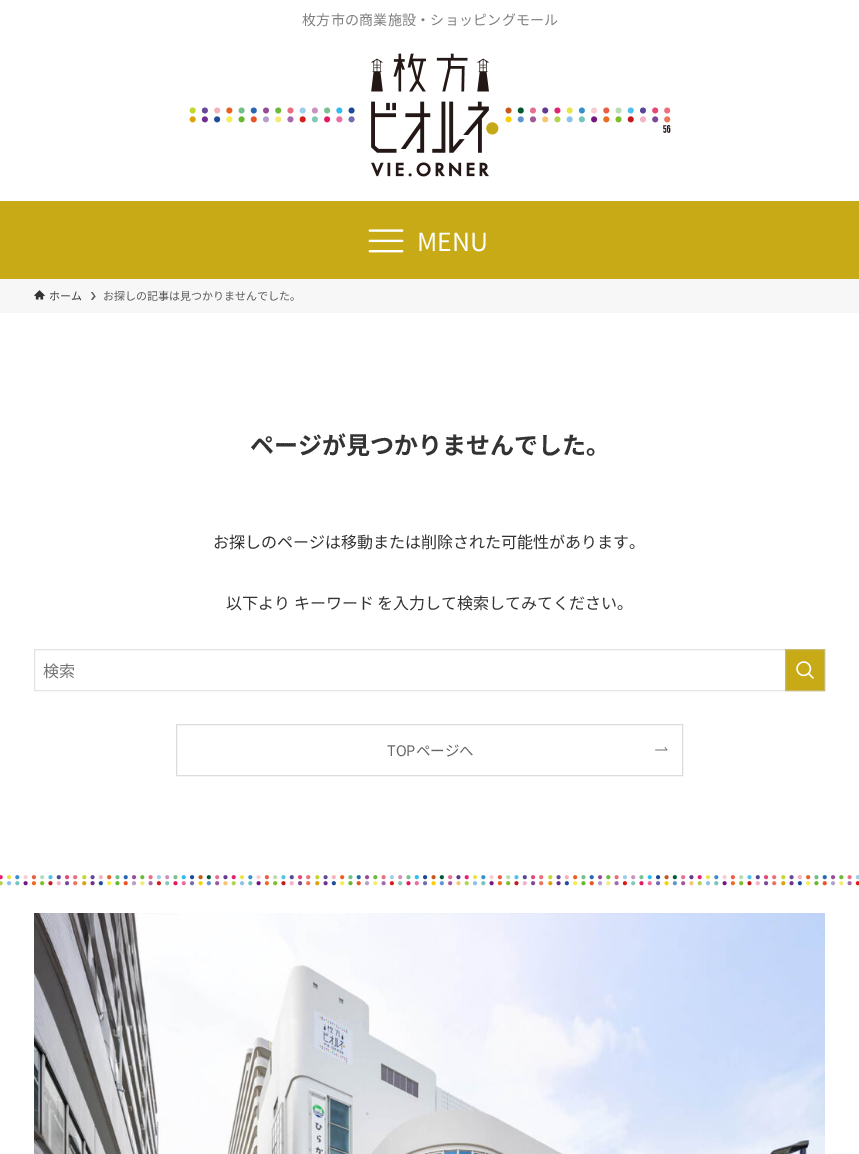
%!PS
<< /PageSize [859 1154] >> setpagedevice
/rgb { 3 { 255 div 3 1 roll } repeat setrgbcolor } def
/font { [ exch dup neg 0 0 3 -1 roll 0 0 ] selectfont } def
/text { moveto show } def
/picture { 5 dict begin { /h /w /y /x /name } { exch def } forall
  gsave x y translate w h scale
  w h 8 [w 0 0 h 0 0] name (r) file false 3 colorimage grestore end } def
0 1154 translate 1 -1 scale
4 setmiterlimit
255 255 255 rgb
0 0 859 1154 rectfill
(img_01.rgb) 189 53 482 124 picture
199 170 22 rgb
0 201 859 78 rectfill
(img_02.rgb) 368 229 36 24 picture
247 247 247 rgb
0 279 859 34 rectfill
(img_03.rgb) 34 290 11 10 picture
90 90 90 rgb
92.5 292 moveto -1.5 0 rlineto 3 4 rlineto -3 4 rlineto 1.5 0 rlineto 3 -3.5 rlineto closepath fill
227 227 227 rgb
34.5 649.5 790 41 rectstroke
199 170 22 rgb
785.5 649.5 moveto 39 0 rlineto 0 41 rlineto -39 0 rlineto closepath gsave fill grestore
199 185 111 rgb
stroke
(img_04.rgb) 796 661 18 18 picture
220 220 220 rgb
176.5 724.5 506 51 rectstroke
(img_05.rgb) 655 747 13 4 picture
(img_06.rgb) 0 875 859 11 picture
(img_07.rgb) 34 913 791 241 picture
/NotoSansJP-Regular 14 font
127 127 127 rgb
302 25 moveto 0.25 0 (枚方市の商業施設・ショッピングモール) ashow
/NotoSansJP-Regular 25 font
255 255 255 rgb
(MENU) 417 251 text
/NotoSansJP-Regular 11 font
51 51 51 rgb
(ホーム) 49 300 text
90 90 90 rgb
(お探しの記事は見つかりませんでした。) 103 300 text
/NotoSansJP-Bold 24 font
51 51 51 rgb
(ページが見つかりませんでした。) 250 454 text
/NotoSansJP-Regular 16 font
(お探しのページは移動または削除された可能性があります。) 213 548 text
(以下より キーワード を入力して検索してみてください。) 226 609 text
117 117 117 rgb
(検索) 43 677 text
/NotoSansJP-Regular 14.5 font
102 102 102 rgb
(TOPページへ) 387 756 text
showpage
